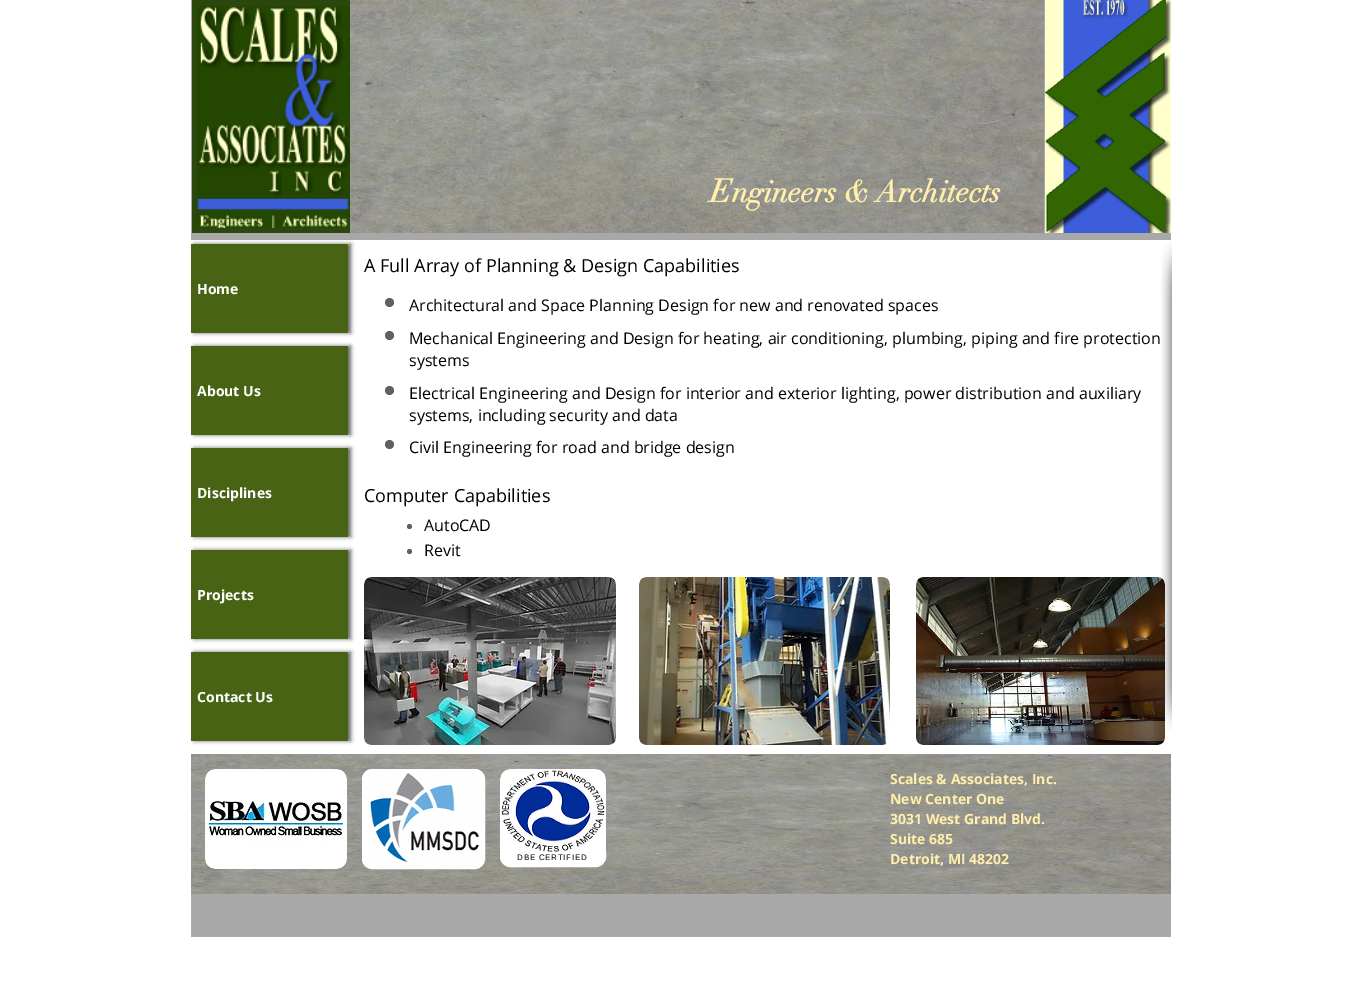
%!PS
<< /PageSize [1362 998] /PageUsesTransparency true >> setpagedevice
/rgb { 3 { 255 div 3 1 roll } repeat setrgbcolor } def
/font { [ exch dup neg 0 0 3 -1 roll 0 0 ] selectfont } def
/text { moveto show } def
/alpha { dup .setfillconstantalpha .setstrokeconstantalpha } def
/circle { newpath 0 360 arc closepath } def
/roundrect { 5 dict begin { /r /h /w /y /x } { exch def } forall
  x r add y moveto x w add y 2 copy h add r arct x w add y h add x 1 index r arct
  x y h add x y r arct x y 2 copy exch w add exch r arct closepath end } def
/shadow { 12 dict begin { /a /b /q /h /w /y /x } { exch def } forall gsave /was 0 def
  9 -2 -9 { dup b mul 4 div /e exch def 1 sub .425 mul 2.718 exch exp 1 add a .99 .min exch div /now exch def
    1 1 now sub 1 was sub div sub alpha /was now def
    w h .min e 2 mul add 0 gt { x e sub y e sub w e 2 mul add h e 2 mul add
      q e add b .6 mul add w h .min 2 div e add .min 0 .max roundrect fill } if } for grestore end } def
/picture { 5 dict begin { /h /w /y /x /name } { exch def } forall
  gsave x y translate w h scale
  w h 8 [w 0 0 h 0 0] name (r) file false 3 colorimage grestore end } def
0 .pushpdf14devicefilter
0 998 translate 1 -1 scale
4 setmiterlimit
255 255 255 rgb
0 0 1362 998 rectfill
168 168 168 rgb
191 0 980 240 rectfill
43 71 14 rgb
192 0 158 233 rectfill
(img_01.rgb) 197 6 153 222 picture
(img_02.rgb) 350 0 694 233 picture
(img_03.rgb) 1045 0 126 233 picture
0 0 0 rgb
194 244 157 89 0 2 0.6 shadow
71 99 19 rgb
191 244 157 89 rectfill
0 0 0 rgb
194 346 157 89 0 2 0.6 shadow
71 99 19 rgb
191 346 157 89 rectfill
0 0 0 rgb
194 448 157 89 0 2 0.6 shadow
71 99 19 rgb
191 448 157 89 rectfill
0 0 0 rgb
194 550 157 89 0 2 0.6 shadow
71 99 19 rgb
191 550 157 89 rectfill
0 0 0 rgb
194 652 157 89 0 2 0.6 shadow
71 99 19 rgb
191 652 157 89 rectfill
96 96 96 rgb
389.5 302.5 4.5 circle fill
389.5 335.5 4.5 circle fill
389.5 390.5 4.5 circle fill
389.5 444.5 4.5 circle fill
409.5 526.5 2.5 circle fill
409.5 551.5 2.5 circle fill
(img_04.rgb) 1161 243 11 97 picture
(img_09.rgb) 916 577 249 168 picture
(img_05.rgb) 1161 340 11 293 picture
(img_06.rgb) 1162 633 10 97 picture
(img_07.rgb) 364 577 252 168 picture
(img_08.rgb) 639 577 251 168 picture
(img_10.rgb) 191 754 980 140 picture
(img_11.rgb) 205 769 142 100 picture
255 255 255 rgb
363.5 770.5 120 97 8.5 roundrect gsave fill grestore
3 setlinewidth
stroke
(img_12.rgb) 368 773 111 90 picture
(img_13.rgb) 500 769 106 83 picture
501.5 853.5 moveto 103 0 rlineto 0 3.5 rlineto 0 4.5 -4 8.5 -8.5 8.5 rcurveto -86 0 rlineto -4.5 0 -8.5 -4 -8.5 -8.5 rcurveto closepath gsave fill grestore
stroke
169 169 169 rgb
191 894 980 43 rectfill
/didot-Bold 32 font
255 239 170 rgb
(E) 710 202 text
/didot-Bold 30 font
(ngineers & Architects) 732 202 text
/OpenSans-Bold 14 font
255 255 255 rgb
(Home) 197 294 text
(About Us) 197 396 text
(Disciplines) 197 498 text
(Projects) 197 600 text
(Contact Us) 197 702 text
/OpenSans-Regular 18 font
0 0 0 rgb
(A Full Array of Planning & Design Capabilities) 364 272 text
/OpenSans-Regular 16 font
(Architectural and Space Planning Design for new and renovated spaces) 409 311 text
(Mechanical Engineering and Design for heating, air conditioning, plumbing, piping and fire protection) 409 344 text
(systems) 409 366 text
(Electrical Engineering and Design for interior and exterior lighting, power distribution and auxiliary) 409 399 text
(systems, including security and data) 409 421 text
(Civil Engineering for road and bridge design) 409 453 text
/OpenSans-Regular 18 font
(Computer Capabilities) 364 502 text
/OpenSans-Regular 16 font
(AutoCAD) 424 531 text
(Revit) 424 556 text
/OpenSans-Bold 14 font
255 239 170 rgb
(Scales & Associates, Inc.) 890 784 text
(New Center One) 890 804 text
(3031 West Grand Blvd.) 890 824 text
(Suite 685) 890 844 text
(Detroit, MI 48202) 890 864 text
/LiberationSans-Regular 8 font
0 0 0 rgb
517 860 moveto 0.75 0 (DBE CERTIFIED) ashow
.poppdf14devicefilter showpage
